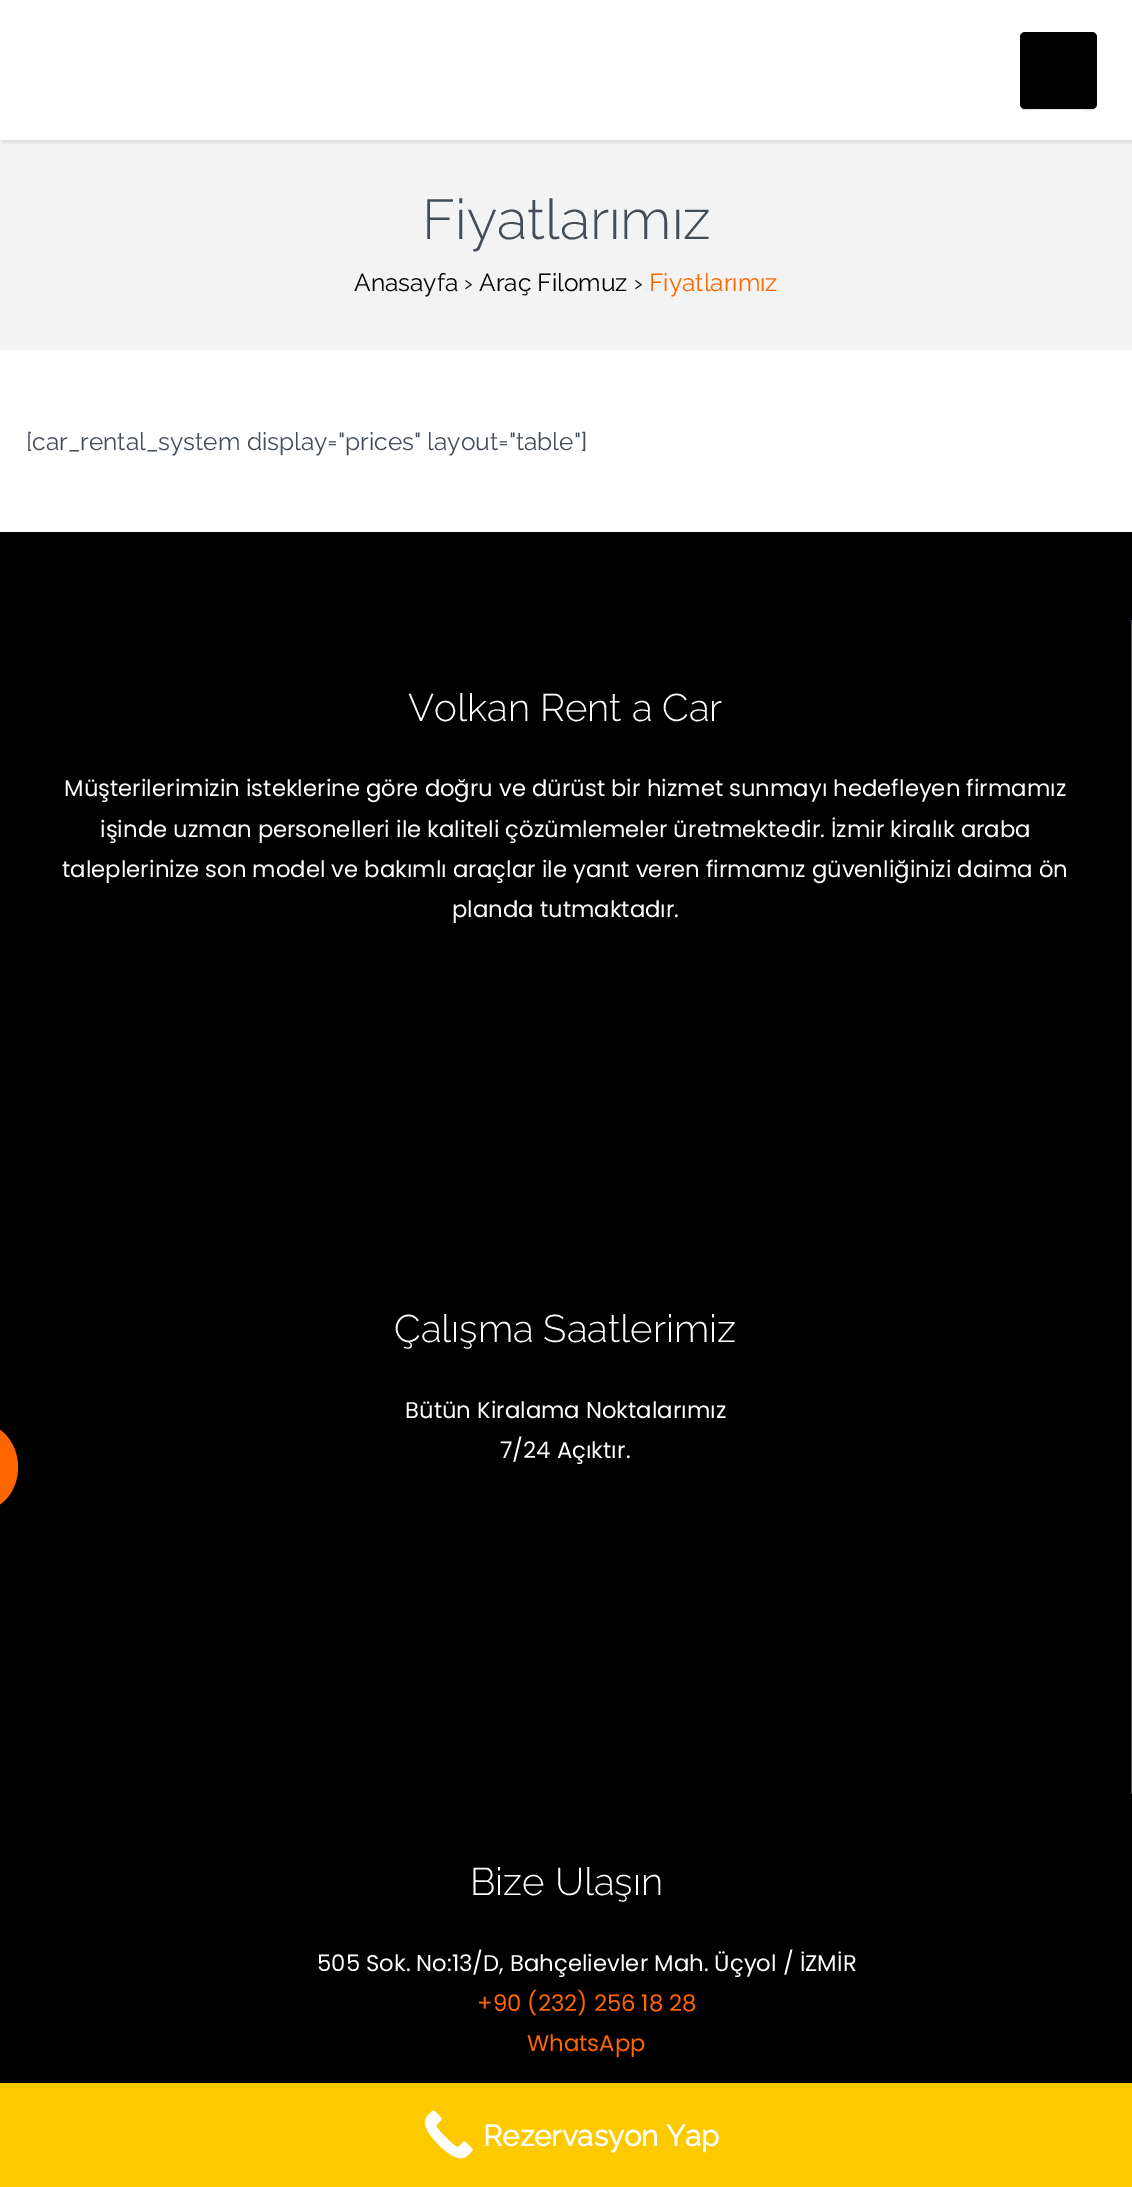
%!PS
<< /PageSize [1132 2187] /PageUsesTransparency true >> setpagedevice
/rgb { 3 { 255 div 3 1 roll } repeat setrgbcolor } def
/font { [ exch dup neg 0 0 3 -1 roll 0 0 ] selectfont } def
/text { moveto show } def
/alpha { dup .setfillconstantalpha .setstrokeconstantalpha } def
/roundrect { 5 dict begin { /r /h /w /y /x } { exch def } forall
  x r add y moveto x w add y 2 copy h add r arct x w add y h add x 1 index r arct
  x y h add x y r arct x y 2 copy exch w add exch r arct closepath end } def
/shadow { 12 dict begin { /a /b /q /h /w /y /x } { exch def } forall gsave /was 0 def
  9 -2 -9 { dup b mul 4 div /e exch def 1 sub .425 mul 2.718 exch exp 1 add a .99 .min exch div /now exch def
    1 1 now sub 1 was sub div sub alpha /was now def
    w h .min e 2 mul add 0 gt { x e sub y e sub w e 2 mul add h e 2 mul add
      q e add b .6 mul add w h .min 2 div e add .min 0 .max roundrect fill } if } for grestore end } def
/picture { 5 dict begin { /h /w /y /x /name } { exch def } forall
  gsave x y translate w h scale
  w h 8 [w 0 0 h 0 0] name (r) file false 3 colorimage grestore end } def
0 .pushpdf14devicefilter
0 2187 translate 1 -1 scale
4 setmiterlimit
255 255 255 rgb
0 0 1132 2187 rectfill
243 243 243 rgb
0 140 1132 210 rectfill
gsave
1 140 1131 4 rectclip
0 0 0 rgb
2 2 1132 140 0 2.5 0.1 shadow
grestore
230 230 230 rgb
1020 36 moveto 0 69 rlineto 0 8 13 5 16 5 rcurveto 45 0 rlineto 3 0 16 3 16 -5 rcurveto -1 2 -3 3 -5 3 rcurveto -66 0 rlineto -3 0 -6 -2 -6 -5 rcurveto closepath fill
0 0 0 rgb
1020 32 77 77 5 roundrect fill
0 532 1132 1551 rectfill
255 102 0 rgb
-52 1424 moveto 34 0 rlineto 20 0 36 20 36 43 rcurveto 0 24 -16 43 -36 43 rcurveto -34 0 rlineto closepath fill
67 77 87 rgb
1131 620 1 1174 rectfill
253 202 0 rgb
0 2083 1132 104 rectfill
(img_01.rgb) 424 2110 49 49 picture
/Raleway-Light 56 font
67 77 87 rgb
(Fiyatlarımız) 422 239 text
/Raleway-Regular 24.5 font
0 0 0 rgb
(Anasayfa › Araç Filomuz ›) 354 291 text
255 102 0 rgb
(Fiyatlarımız) 649 291 text
67 77 87 rgb
([car_rental_system display="prices" layout="table"]) 26 450 text
/Raleway-Light 38.5 font
255 255 255 rgb
(Volkan Rent a Car) 408 721 text
/Poppins-Regular 22.75 font
(Müşterilerimizin isteklerine göre doğru ve dürüst bir hizmet sunmayı hedefleyen firmamız) 64 796 text
(işinde uzman personelleri ile kaliteli çözümlemeler üretmektedir. İzmir kiralık araba) 100 837 text
(taleplerinize son model ve bakımlı araçlar ile yanıt veren firmamız güvenliğinizi daima ön) 62 877 text
(planda tutmaktadır.) 452 917 text
/Raleway-Light 38.5 font
(Çalışma Saatlerimiz) 394 1342 text
/Poppins-Regular 22.75 font
(Bütün Kiralama Noktalarımız) 405 1418 text
(7/24 Açıktır.) 500 1458 text
/Raleway-Light 38.5 font
(Bize Ulaşın) 470 1895 text
/Poppins-Regular 22.75 font
(505 Sok. No:13/D, Bahçelievler Mah. Üçyol / İZMİR) 317 1971 text
255 102 0 rgb
(+90 \(232\) 256 18 28) 477 2011 text
(WhatsApp) 527 2051 text
/Raleway-Bold 29.5 font
255 255 255 rgb
(Rezervasyon Yap) 483 2146 text
.poppdf14devicefilter showpage
